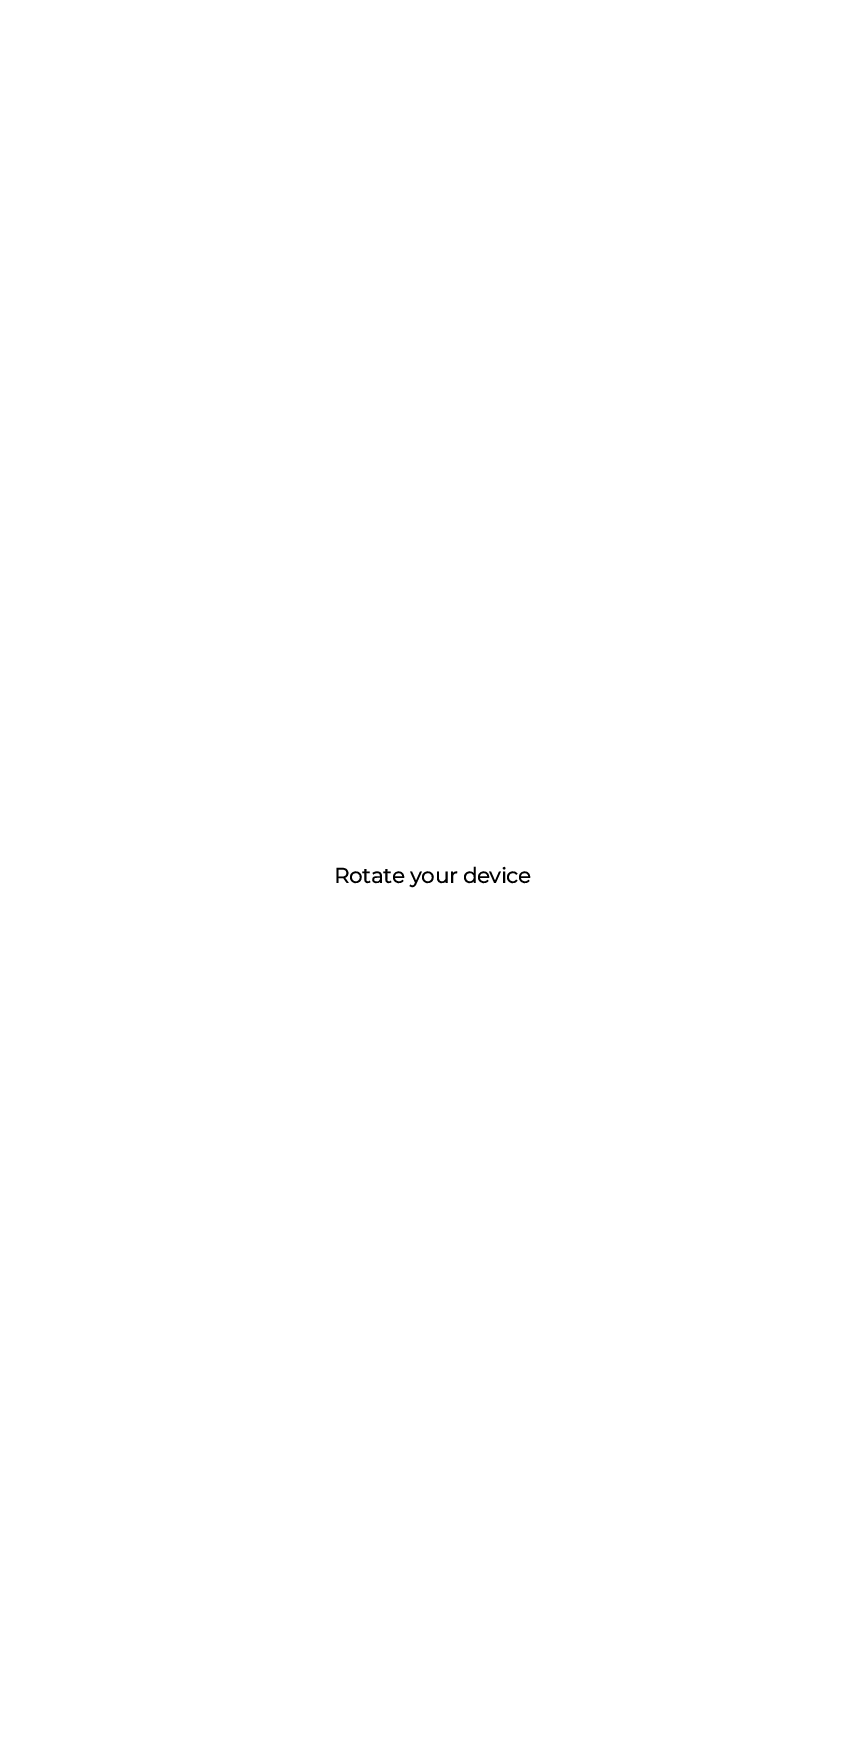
%!PS
<< /PageSize [866 1750] >> setpagedevice
/rgb { 3 { 255 div 3 1 roll } repeat setrgbcolor } def
/font { [ exch dup neg 0 0 3 -1 roll 0 0 ] selectfont } def
/text { moveto show } def
0 1750 translate 1 -1 scale
4 setmiterlimit
255 255 255 rgb
0 0 866 1750 rectfill
/Montserrat-Bold 21 font
0 0 0 rgb
(Rotate your device) 334 883 text
showpage
